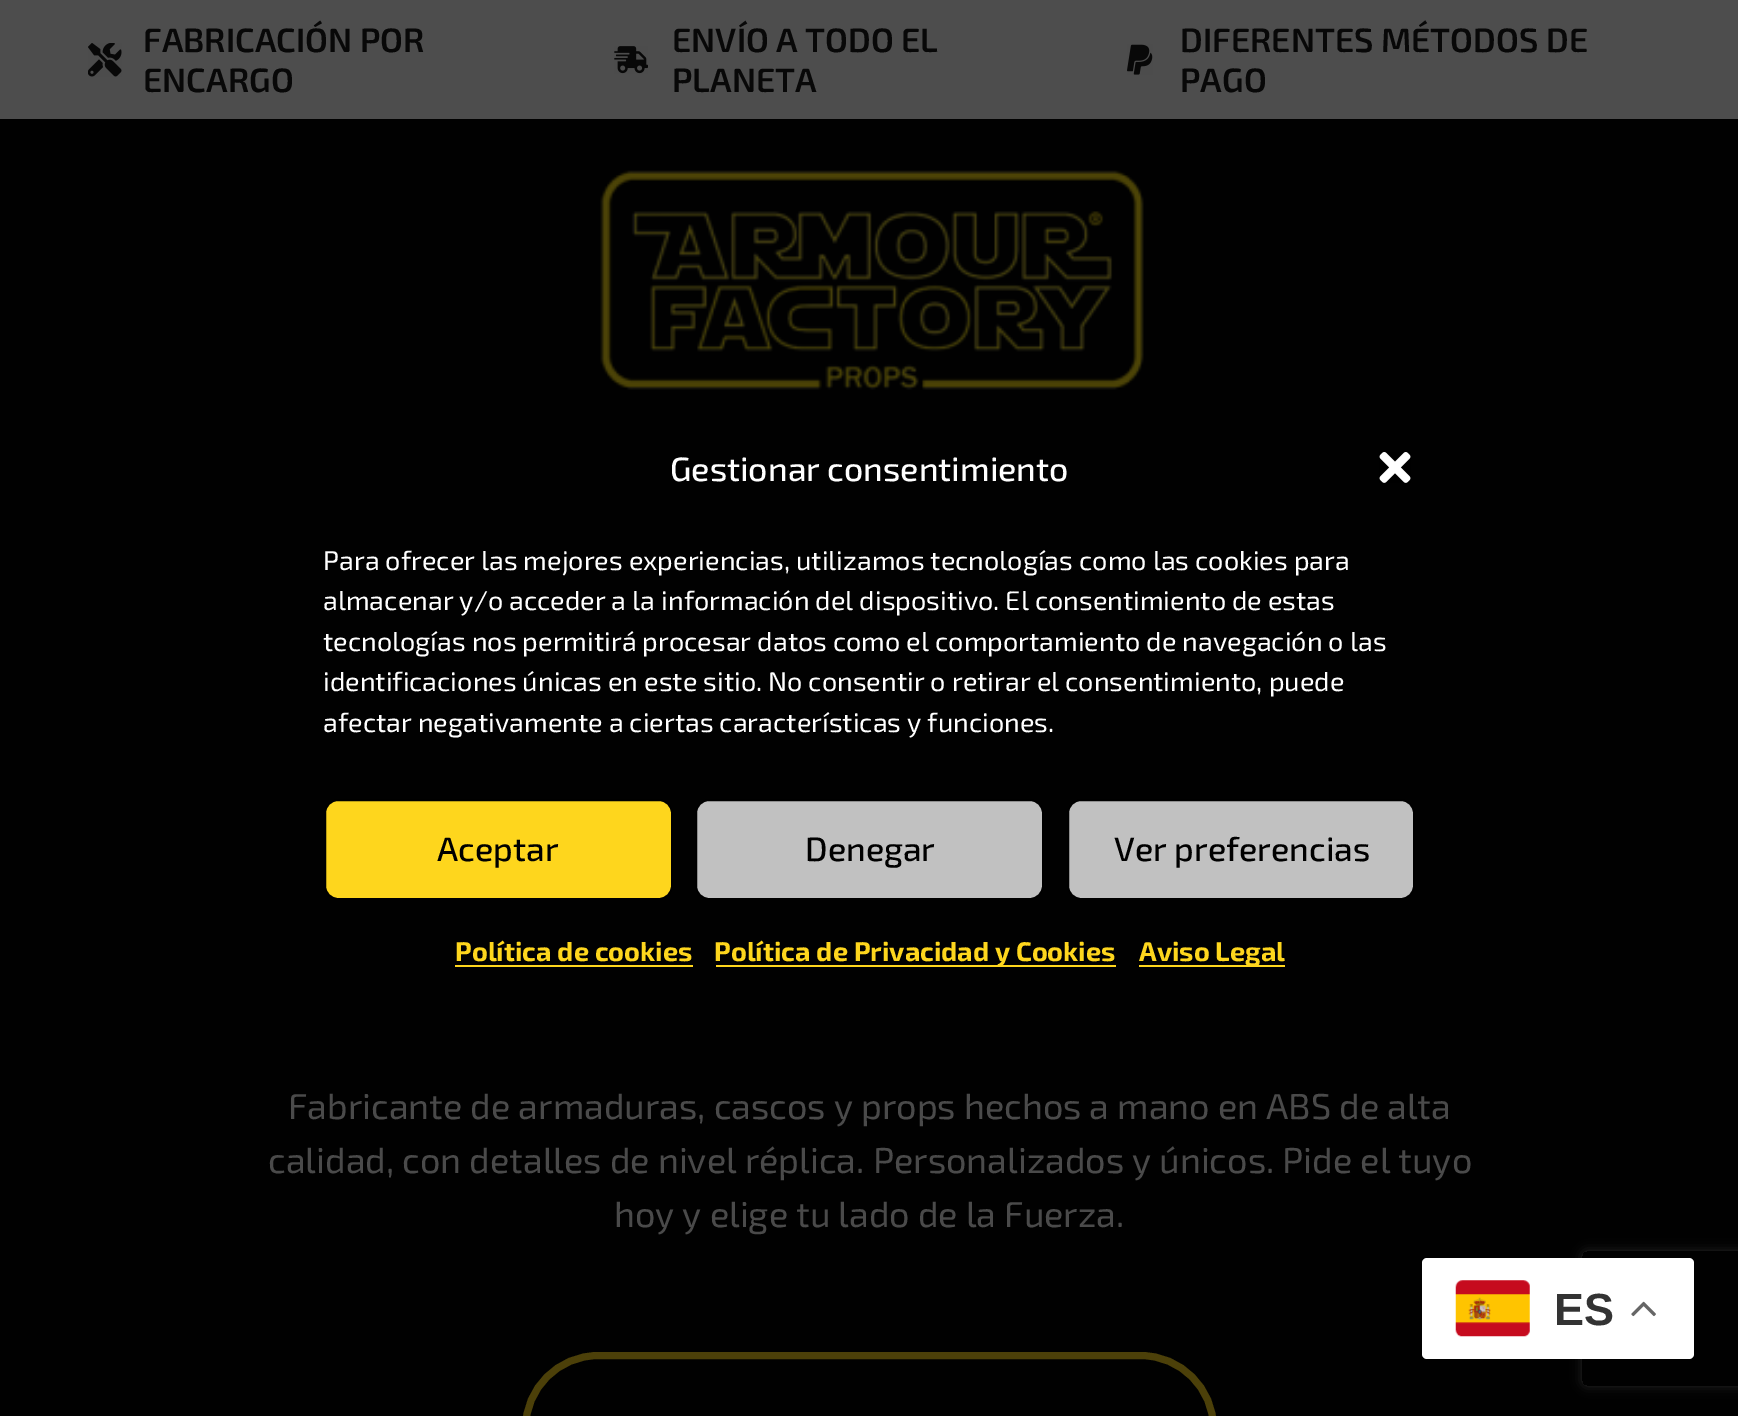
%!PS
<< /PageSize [1738 1416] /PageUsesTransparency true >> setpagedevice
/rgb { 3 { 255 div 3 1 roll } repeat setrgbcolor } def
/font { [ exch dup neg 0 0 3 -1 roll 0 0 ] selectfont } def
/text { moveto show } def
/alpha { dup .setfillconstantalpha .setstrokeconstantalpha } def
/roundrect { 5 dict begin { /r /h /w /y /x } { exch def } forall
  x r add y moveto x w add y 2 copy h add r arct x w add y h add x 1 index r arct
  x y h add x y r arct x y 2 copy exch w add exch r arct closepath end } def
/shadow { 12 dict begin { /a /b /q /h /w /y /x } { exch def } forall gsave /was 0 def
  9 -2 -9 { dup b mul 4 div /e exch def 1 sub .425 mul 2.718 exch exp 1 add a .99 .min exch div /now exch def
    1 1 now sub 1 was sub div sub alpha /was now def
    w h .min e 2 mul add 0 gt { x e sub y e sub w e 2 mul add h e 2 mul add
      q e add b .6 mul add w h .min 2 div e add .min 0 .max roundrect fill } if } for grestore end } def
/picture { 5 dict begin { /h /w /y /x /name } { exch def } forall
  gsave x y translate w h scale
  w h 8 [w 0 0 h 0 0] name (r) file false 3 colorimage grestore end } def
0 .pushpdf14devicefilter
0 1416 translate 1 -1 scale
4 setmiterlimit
1 1 1 rgb
0 0 1738 1416 rectfill
77 77 77 rgb
0 0 1738 119 rectfill
(img_01.rgb) 88 43 34 34 picture
(img_02.rgb) 614 46 34 28 picture
(img_03.rgb) 1127 44 26 31 picture
(img_04.rgb) 600 170 544 220 picture
(img_05.rgb) 1379 452 32 31 picture
254 214 29 rgb
325 800 347 99 13 roundrect gsave fill grestore
0 0 0 rgb
2 setlinewidth
stroke
193 193 193 rgb
696 800 347 99 13 roundrect gsave fill grestore
0 0 0 rgb
stroke
193 193 193 rgb
1068 800 346 99 13 roundrect gsave fill grestore
0 0 0 rgb
stroke
254 214 29 rgb
455 965 238 2 rectfill
716 965 400 2 rectfill
1139 965 146 2 rectfill
76 64 9 rgb
7 setlinewidth
525.5 1355.5 688 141 73 roundrect stroke
gsave
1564 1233 moveto 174 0 rlineto 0 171 rlineto -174 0 rlineto closepath 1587 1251 moveto 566 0 rlineto 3 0 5 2 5 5 rcurveto 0 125 rlineto 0 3 -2 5 -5 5 rcurveto -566 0 rlineto -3 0 -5 -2 -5 -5 rcurveto 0 -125 rlineto 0 -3 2 -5 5 -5 rcurveto closepath eoclip newpath
38 38 38 rgb
1582 1251 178 135 5 5.5 1 shadow
grestore
255 255 255 rgb
1422 1258 272 101 5 roundrect fill
(img_06.rgb) 1455 1280 75 57 picture
(img_07.rgb) 1631 1301 25 16 picture
/Exo2-SemiBold 33.75 font
8 8 8 rgb
(FABRICACIÓN POR) 143 52 text
(ENCARGO) 143 92 text
(ENVÍO A TODO EL) 672 52 text
(PLANETA) 672 92 text
(DIFERENTES MÉTODOS DE) 1180 52 text
(PAGO) 1180 92 text
/Exo2-Medium 33.75 font
255 255 255 rgb
(Gestionar consentimiento) 670 481 text
/Exo2-Regular 27 font
(Para ofrecer las mejores experiencias, utilizamos tecnologías como las cookies para) 323 570 text
(almacenar y/o acceder a la información del dispositivo. El consentimiento de estas) 323 610 text
(tecnologías nos permitirá procesar datos como el comportamiento de navegación o las) 323 651 text
(identificaciones únicas en este sitio. No consentir o retirar el consentimiento, puede) 323 691 text
(afectar negativamente a ciertas características y funciones.) 323 732 text
/Exo2-Medium 33.75 font
0 0 0 rgb
(Aceptar) 437 861 text
(Denegar) 805 861 text
(Ver preferencias) 1114 861 text
/Exo2-Bold 27 font
254 214 29 rgb
(Política de cookies) 455 961 text
(Política de Privacidad y Cookies) 714 961 text
(Aviso Legal) 1139 961 text
/Exo2-Regular 36 font
74 74 74 rgb
(Fabricante de armaduras, cascos y props hechos a mano en ABS de alta) 288 1119 text
(calidad, con detalles de nivel réplica. Personalizados y únicos. Pide el tuyo) 268 1173 text
(hoy y elige tu lado de la Fuerza.) 614 1227 text
/LiberationSans-Bold 45 font
51 51 51 rgb
(ES) 1554 1325 text
.poppdf14devicefilter showpage
